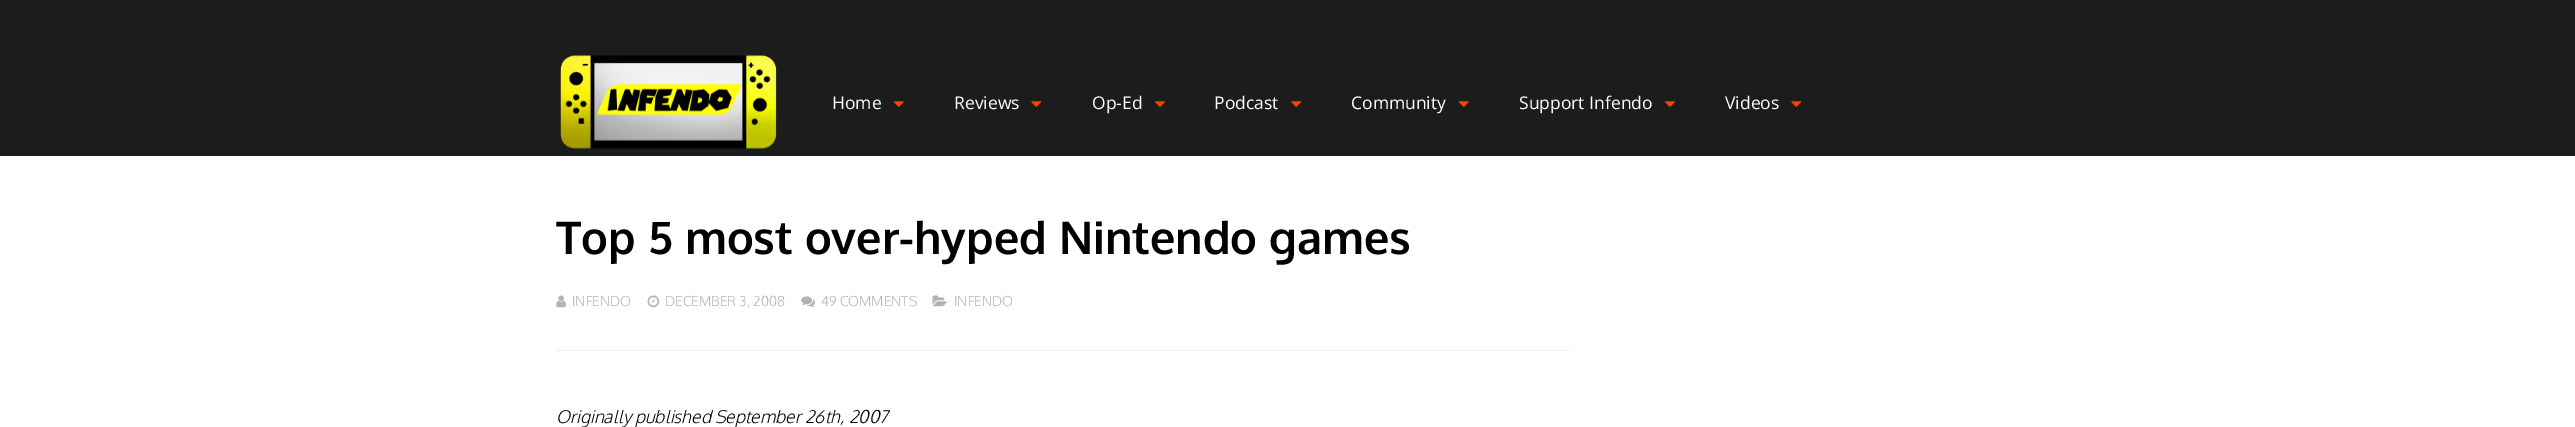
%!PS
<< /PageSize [2575 427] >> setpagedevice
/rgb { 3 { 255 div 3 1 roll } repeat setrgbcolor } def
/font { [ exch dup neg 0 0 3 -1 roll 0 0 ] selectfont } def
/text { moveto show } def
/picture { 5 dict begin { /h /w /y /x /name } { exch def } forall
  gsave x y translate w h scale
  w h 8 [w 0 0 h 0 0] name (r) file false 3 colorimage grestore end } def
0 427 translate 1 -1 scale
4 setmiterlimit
255 255 255 rgb
0 0 2575 427 rectfill
28 28 28 rgb
0 0 2575 156 rectfill
(img_01.rgb) 560 55 217 94 picture
(img_02.rgb) 893 101 11 6 picture
(img_03.rgb) 1031 101 11 6 picture
(img_04.rgb) 1155 101 10 6 picture
(img_03.rgb) 1291 101 11 6 picture
(img_02.rgb) 1458 101 11 6 picture
(img_04.rgb) 1665 101 10 6 picture
(img_03.rgb) 1791 101 11 6 picture
238 238 238 rgb
556 350 1013 1 rectfill
(img_05.rgb) 556 295 10 13 picture
(img_06.rgb) 647 295 13 13 picture
(img_07.rgb) 801 296 14 12 picture
(img_08.rgb) 932 295 15 12 picture
/OpenSans-Regular 17.5 font
255 255 255 rgb
(Home) 832 109 text
(Reviews) 954 109 text
(Op-Ed) 1092 109 text
(Podcast) 1214 109 text
(Community) 1351 109 text
(Support Infendo) 1519 109 text
(Videos) 1725 109 text
/Oxygen-Bold 45 font
0 0 0 rgb
(Top 5 most over-hyped Nintendo games) 556 254 text
/Oxygen-Light 13.75 font
179 179 177 rgb
(INFENDO) 572 306 text
(DECEMBER 3, 2008) 665 306 text
(49 COMMENTS) 821 306 text
(INFENDO) 954 306 text
/Oxygen-LightItalic 17.5 font
0 0 0 rgb
(Originally published September 26th, 2007) 556 423 text
showpage
